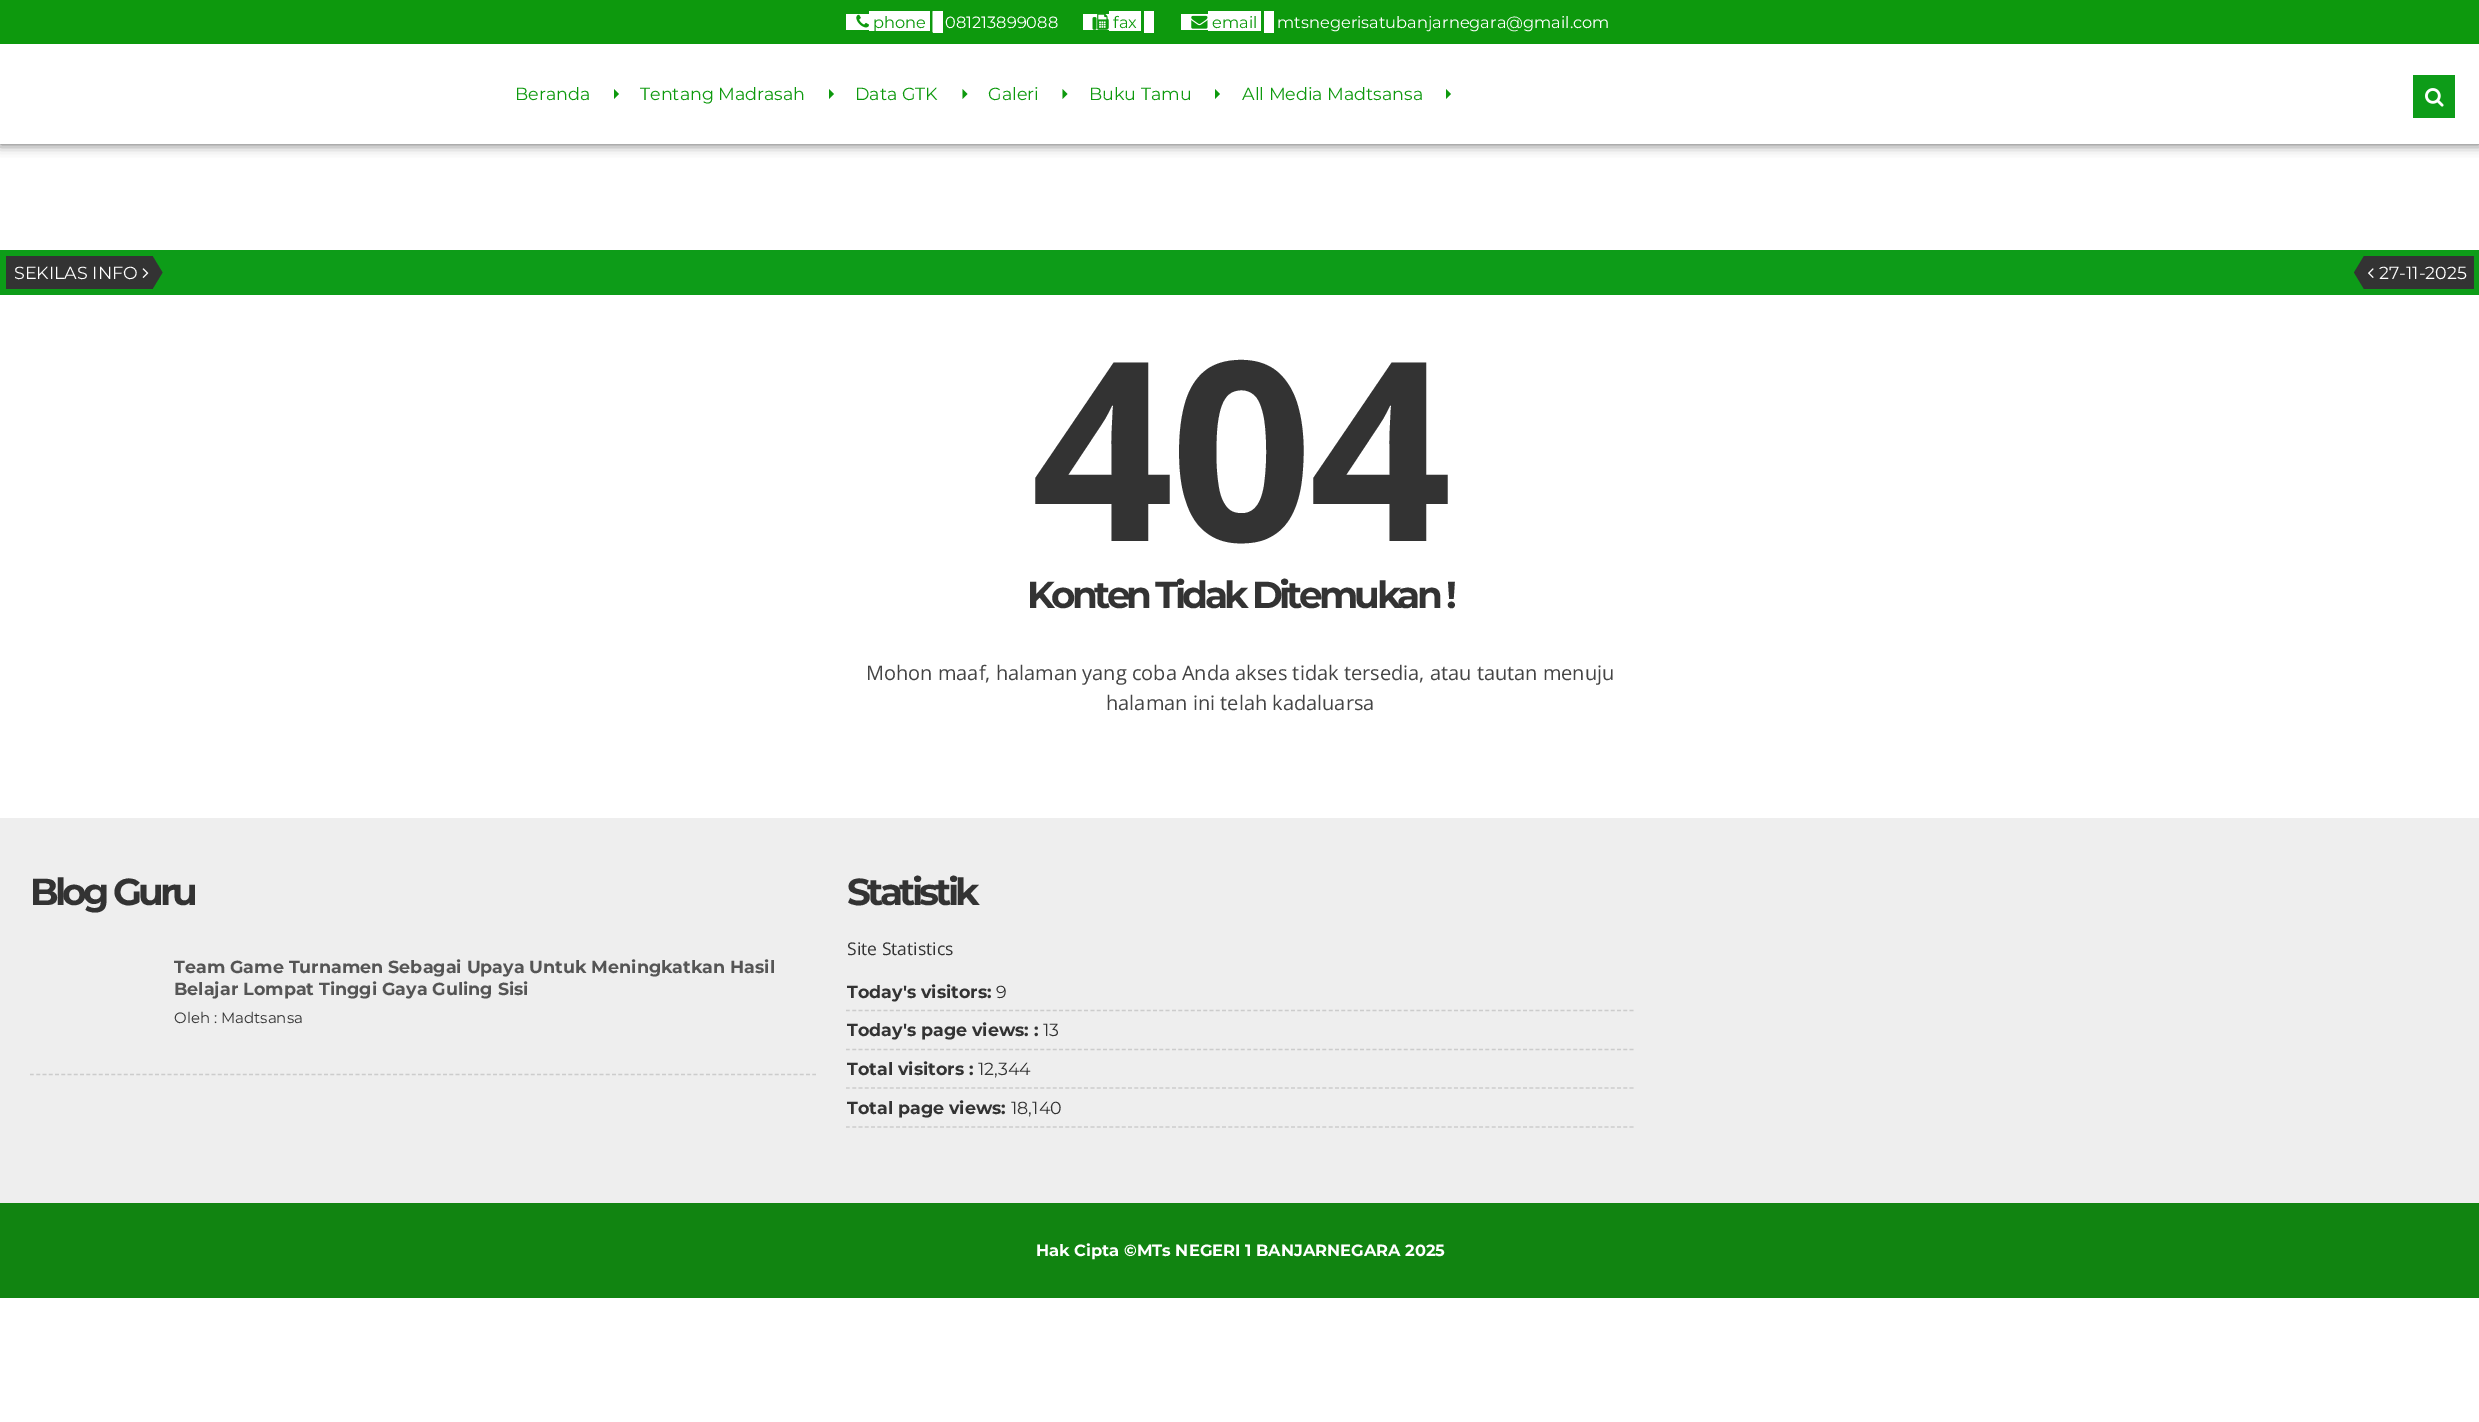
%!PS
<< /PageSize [2479 1422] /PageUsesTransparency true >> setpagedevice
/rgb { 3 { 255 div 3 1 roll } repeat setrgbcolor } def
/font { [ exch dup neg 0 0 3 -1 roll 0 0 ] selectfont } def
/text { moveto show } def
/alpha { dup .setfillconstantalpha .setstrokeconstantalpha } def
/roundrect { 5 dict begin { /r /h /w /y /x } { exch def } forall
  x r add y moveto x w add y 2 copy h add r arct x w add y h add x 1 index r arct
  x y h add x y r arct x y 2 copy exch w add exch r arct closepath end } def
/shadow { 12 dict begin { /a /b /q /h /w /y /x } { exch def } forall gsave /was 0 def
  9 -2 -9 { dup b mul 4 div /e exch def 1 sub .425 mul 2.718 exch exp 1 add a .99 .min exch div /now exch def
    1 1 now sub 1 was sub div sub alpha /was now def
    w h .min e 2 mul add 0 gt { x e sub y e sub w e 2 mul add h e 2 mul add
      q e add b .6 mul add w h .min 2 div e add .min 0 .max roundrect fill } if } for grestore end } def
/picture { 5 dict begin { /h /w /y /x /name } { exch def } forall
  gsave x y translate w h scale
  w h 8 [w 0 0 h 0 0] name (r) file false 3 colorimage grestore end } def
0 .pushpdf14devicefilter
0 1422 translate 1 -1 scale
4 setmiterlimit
255 255 255 rgb
0 0 2479 1422 rectfill
85 85 85 rgb
0 0 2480 144 0 6 1 shadow
255 255 255 rgb
0 44 2479 100 rectfill
13 153 13 rgb
0 0 2479 44 rectfill
255 255 255 rgb
846 14 23 16 rectfill
869 11 61 20 rectfill
933 11 10 22 rectfill
(img_01.rgb) 856 14 13 14 picture
932.5 32.5 moveto 0 -21.5 rlineto 7.5 11.5 rlineto closepath fill
1083 14 26 16 rectfill
1109 11 32 20 rectfill
1144 11 10 22 rectfill
(img_02.rgb) 1092 14 17 16 picture
1181 14 27 16 rectfill
1208 11 53 20 rectfill
1264 11 10 22 rectfill
(img_03.rgb) 1191 15 17 14 picture
13 153 13 rgb
614 99 moveto 0 -10 rlineto 5 5 rlineto closepath fill
829 99 moveto 0 -10 rlineto 5 5 rlineto closepath fill
962.5 99 moveto 0 -10 rlineto 5 5 rlineto closepath fill
1062.5 99 moveto 0 -10 rlineto 5 5 rlineto closepath fill
1215 99 moveto 0 -10 rlineto 5 5 rlineto closepath fill
1446 99 moveto 0 -10 rlineto 5 5 rlineto closepath fill
13 156 24 rgb
2413 75 42 43 rectfill
(img_04.rgb) 2425 88 19 19 picture
0 250 2479 45 rectfill
51 51 51 rgb
6 256 147 33 rectfill
(img_05.rgb) 142 268 7 10 picture
152.5 289 moveto 0 -33 rlineto 10 16.5 rlineto closepath fill
2364 256 110 33 rectfill
2364 256 moveto 0 33 rlineto -10 -16.5 rlineto closepath fill
(img_06.rgb) 2368 268 6 10 picture
238 238 238 rgb
0 818 2479 385 rectfill
204 204 204 rgb
1.2 setlinewidth
[3.75 2.51] 0 setdash
30 1074.5 moveto 786 0 rlineto stroke
[3.75 2.52] 0 setdash
846 1010.5 moveto 788 0 rlineto stroke
846 1049.5 moveto 788 0 rlineto stroke
846 1088 moveto 788 0 rlineto stroke
846 1127 moveto 788 0 rlineto stroke
17 132 17 rgb
0 1203 2479 95 rectfill
/Montserrat-Regular 16.25 font
13 153 13 rgb
(phone) 873 28 text
255 255 255 rgb
(081213899088) 945 28 text
13 153 13 rgb
(fax) 1113 28 text
(email) 1212 28 text
255 255 255 rgb
(mtsnegerisatubanjarnegara@gmail.com) 1277 28 text
/Montserrat-Regular 17.5 font
13 153 13 rgb
(Beranda) 515 100 text
(Tentang Madrasah) 640 100 text
(Data GTK) 855 100 text
(Galeri) 988 100 text
(Buku Tamu) 1089 100 text
(All Media Madtsansa) 1242 100 text
255 255 255 rgb
(SEKILAS INFO) 14 279 text
(27-11-2025) 2379 279 text
/OpenSans-Bold 250 font
51 51 51 rgb
1031 541 moveto -3.75 0 (404) ashow
/Montserrat-Bold 37.5 font
1027 608 moveto -3.75 0 (Konten Tidak Ditemukan !) ashow
/OpenSans-Regular 20 font
68 68 68 rgb
(Mohon maaf, halaman yang coba Anda akses tidak tersedia, atau tautan menuju) 866 680 text
(halaman ini telah kadaluarsa) 1106 710 text
/Montserrat-Bold 37.5 font
51 51 51 rgb
30 905 moveto -3.75 0 (Blog Guru) ashow
/Montserrat-Bold 17.5 font
85 85 85 rgb
(Team Game Turnamen Sebagai Upaya Untuk Meningkatkan Hasil) 174 973 text
(Belajar Lompat Tinggi Gaya Guling Sisi) 174 995 text
/Montserrat-Regular 15 font
51 51 51 rgb
(Oleh : Madtsansa) 174 1023 text
/Montserrat-Bold 37.5 font
847 905 moveto -3.75 0 (Statistik) ashow
/OpenSans-Regular 17.5 font
(Site Statistics) 847 955 text
/Montserrat-Bold 17.5 font
(Today's visitors:) 847 998 text
/Montserrat-Regular 17.5 font
(9) 996 998 text
/Montserrat-Bold 17.5 font
(Today's page views: :) 847 1036 text
/Montserrat-Regular 17.5 font
(13) 1043 1036 text
/Montserrat-Bold 17.5 font
(Total visitors :) 847 1075 text
/Montserrat-Regular 17.5 font
(12,344) 978 1075 text
/Montserrat-Bold 17.5 font
(Total page views:) 847 1114 text
/Montserrat-Regular 17.5 font
(18,140) 1011 1114 text
/Montserrat-Bold 16.25 font
255 255 255 rgb
(Hak Cipta ©MTs NEGERI 1 BANJARNEGARA 2025) 1036 1256 text
.poppdf14devicefilter showpage
